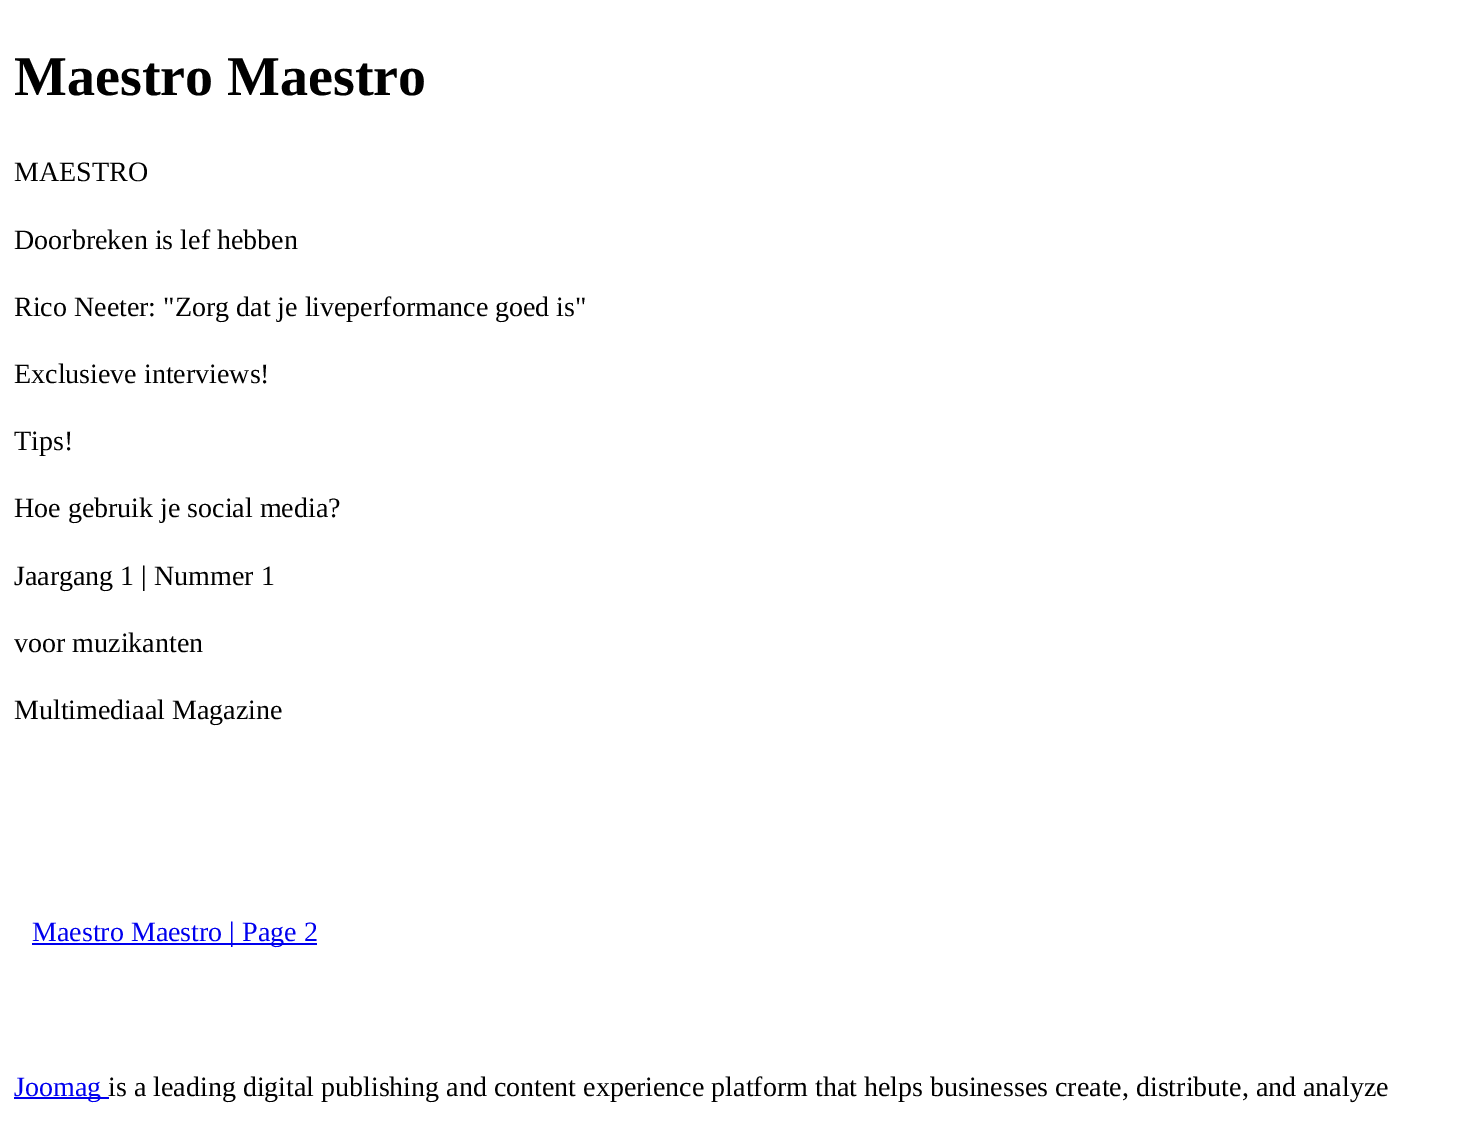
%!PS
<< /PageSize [1465 1122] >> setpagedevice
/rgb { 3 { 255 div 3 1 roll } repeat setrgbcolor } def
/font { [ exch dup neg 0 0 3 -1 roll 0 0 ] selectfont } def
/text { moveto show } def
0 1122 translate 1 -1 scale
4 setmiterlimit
255 255 255 rgb
0 0 1465 1122 rectfill
0 0 238 rgb
32 943 285 2 rectfill
14 1097 95 2 rectfill
/LiberationSerif-Bold 56 font
0 0 0 rgb
(Maestro Maestro) 14 95 text
/LiberationSerif-Regular 28 font
(MAESTRO) 14 181 text
(Doorbreken is lef hebben) 14 249 text
(Rico Neeter: "Zorg dat je liveperformance goed is") 14 316 text
(Exclusieve interviews!) 14 383 text
(Tips!) 14 450 text
(Hoe gebruik je social media?) 14 517 text
(Jaargang 1 | Nummer 1) 14 585 text
(voor muzikanten) 14 652 text
(Multimediaal Magazine) 14 719 text
0 0 238 rgb
(Maestro Maestro | Page 2) 32 941 text
(Joomag) 14 1096 text
0 0 0 rgb
(is a leading digital publishing and content experience platform that helps businesses create, distribute, and analyze) 108 1096 text
showpage
